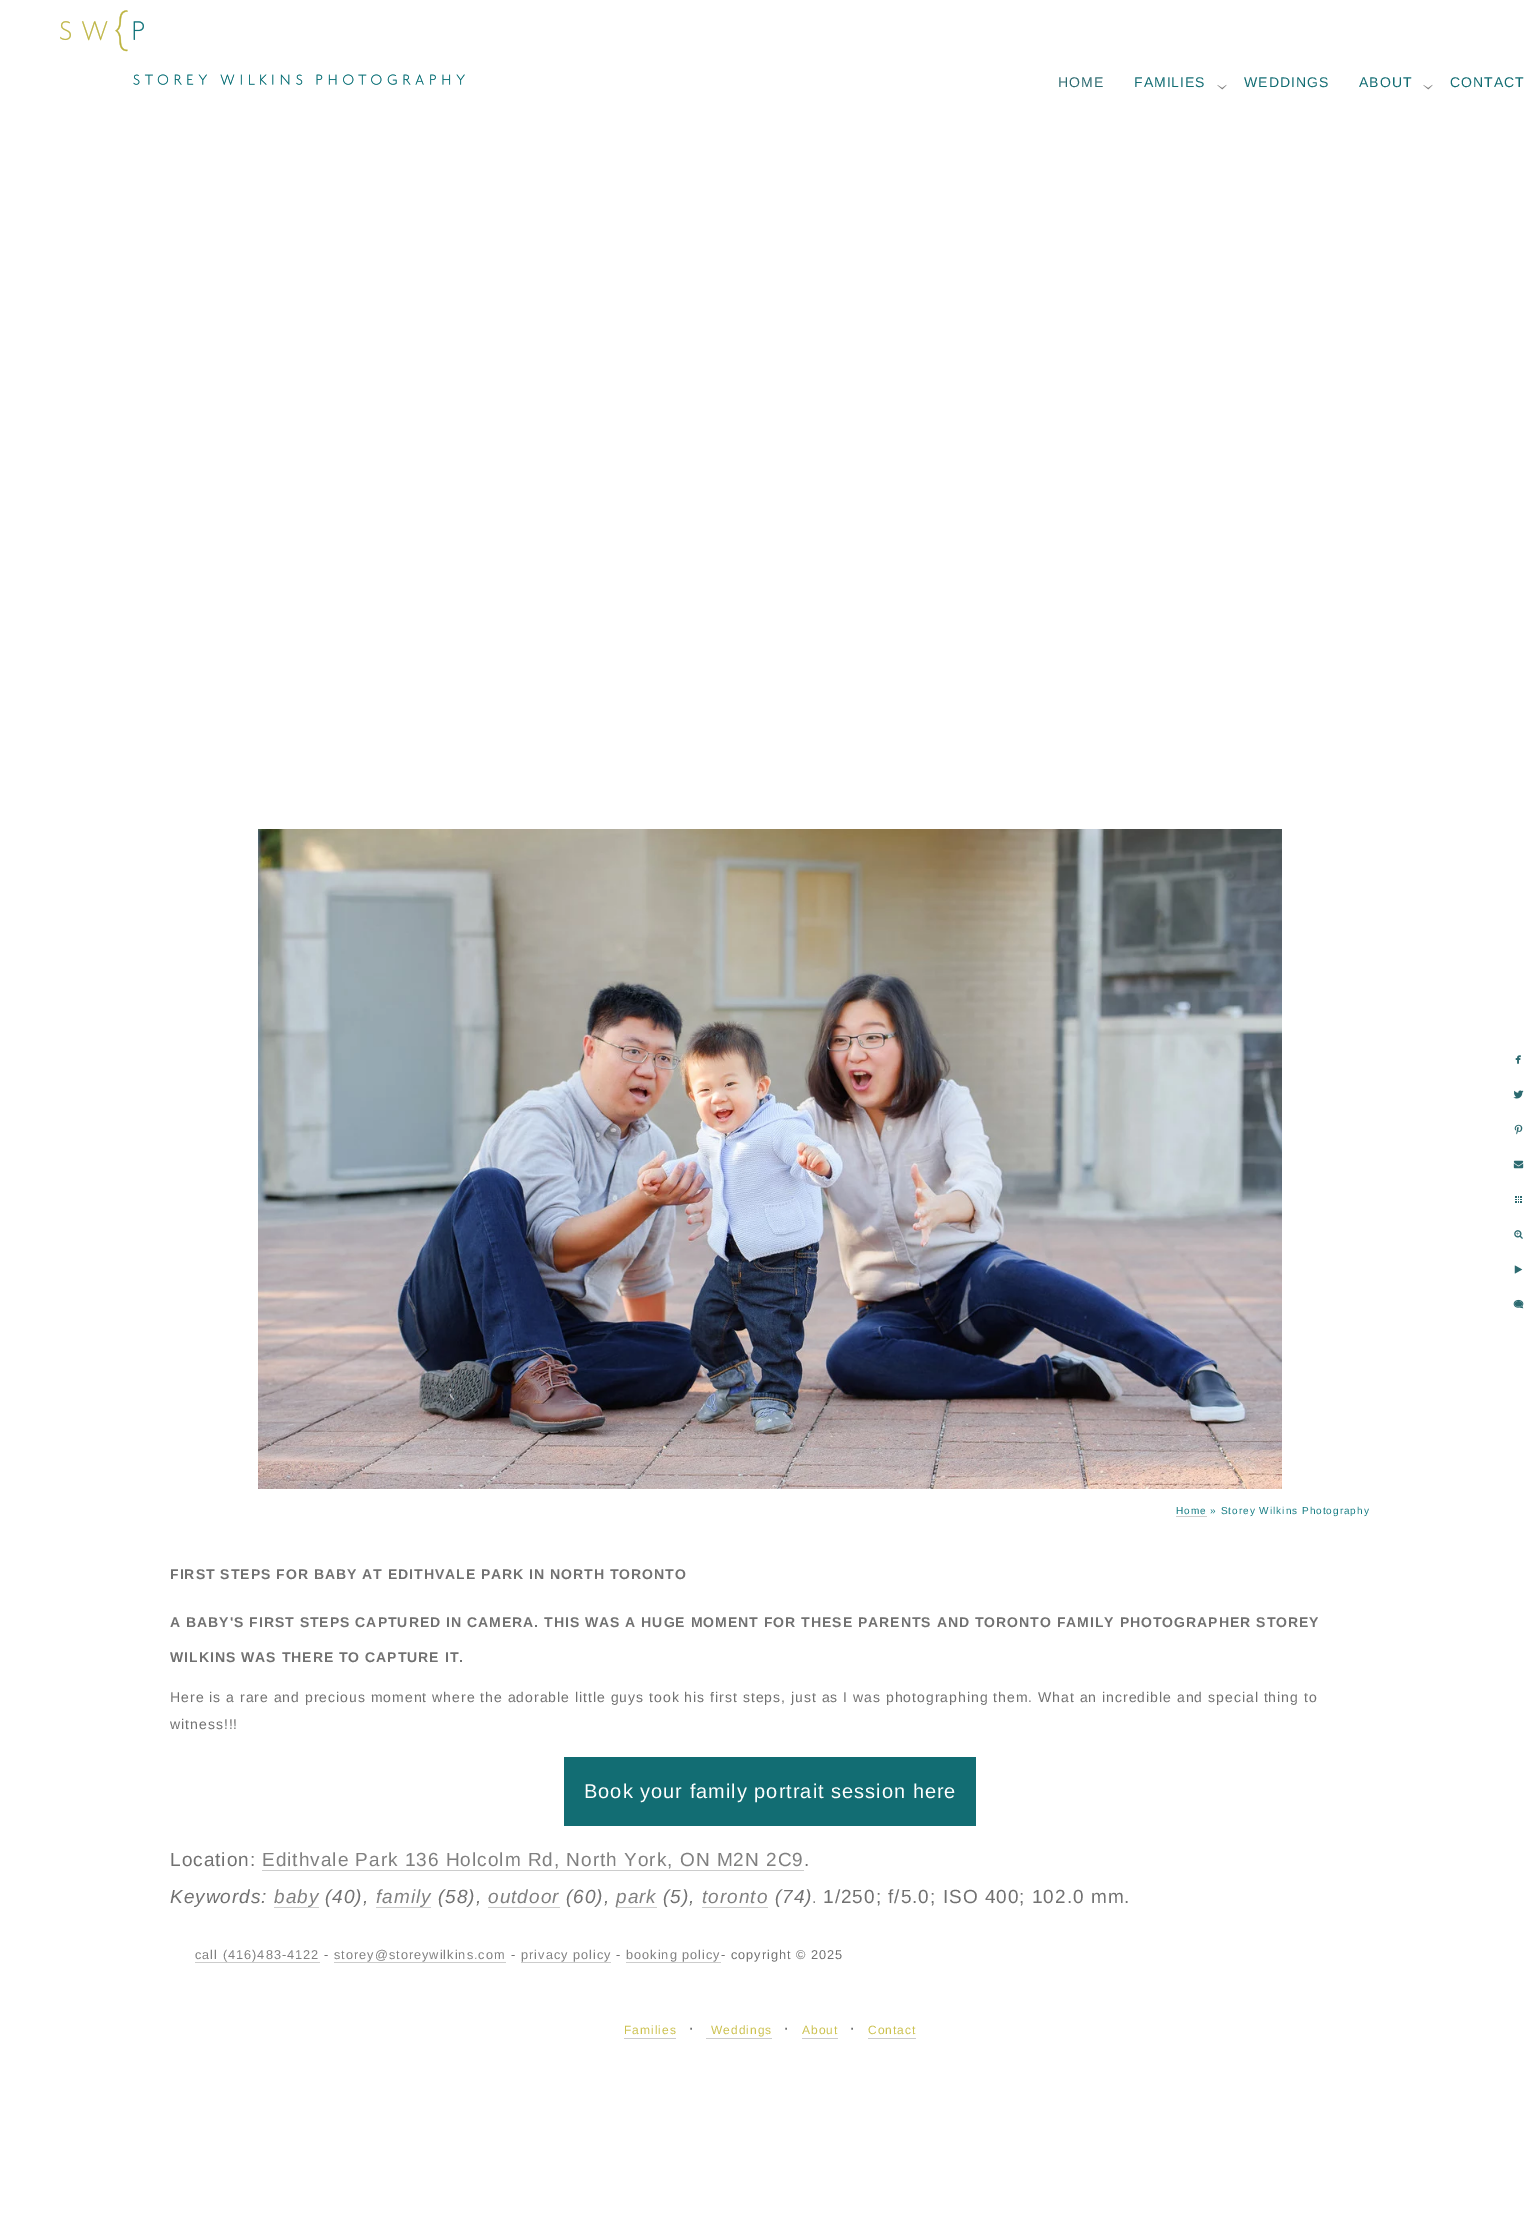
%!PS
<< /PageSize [1540 2233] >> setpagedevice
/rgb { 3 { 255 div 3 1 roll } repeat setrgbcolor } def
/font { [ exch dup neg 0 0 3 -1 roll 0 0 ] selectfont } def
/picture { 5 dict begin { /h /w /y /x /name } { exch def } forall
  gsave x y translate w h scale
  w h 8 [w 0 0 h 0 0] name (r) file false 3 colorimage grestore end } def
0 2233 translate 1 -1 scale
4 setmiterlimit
255 255 255 rgb
0 0 1540 2233 rectfill
(img_01.rgb) 60 10 405 75 picture
(img_02.rgb) 1217 84 10 6 picture
(img_02.rgb) 1423 84 10 6 picture
(img_03.rgb) 258 829 1024 660 picture
(img_04.rgb) 1515 1055 6 9 picture
(img_05.rgb) 1513 1090 11 9 picture
(img_06.rgb) 1514 1124 9 11 picture
(img_07.rgb) 1513 1160 11 9 picture
(img_08.rgb) 1515 1196 7 7 picture
(img_09.rgb) 1514 1230 9 9 picture
(img_10.rgb) 1514 1265 9 9 picture
(img_11.rgb) 1513 1299 11 10 picture
204 204 204 rgb
1176 1516 31 1 rectfill
18 109 115 rgb
564 1757 412 69 rectfill
204 204 204 rgb
262 1870 542 1 rectfill
274 1907 45 1 rectfill
376 1907 55 1 rectfill
488 1907 72 1 rectfill
616 1907 41 1 rectfill
702 1907 66 1 rectfill
195 1962 125 1 rectfill
334 1962 172 1 rectfill
521 1962 90 1 rectfill
626 1962 95 1 rectfill
624 2038 52 1 rectfill
706 2038 66 1 rectfill
802 2038 36 1 rectfill
868 2038 48 1 rectfill
/LiberationSans-Regular 14 font
44 106 112 rgb
1058 87 moveto 1 0 (HOME) ashow
18 109 115 rgb
1134 87 moveto 1 0 (FAMILIES) ashow
1244 87 moveto 1 0 (WEDDINGS) ashow
1359 87 moveto 1 0 (ABOUT) ashow
1450 87 moveto 1 0 (CONTACT) ashow
/LiberationSans-Regular 10 font
19 123 130 rgb
1176 1514 moveto 1 0 (Home » Storey Wilkins Photography) ashow
/LiberationSans-Bold 14 font
113 113 113 rgb
170 1579 moveto 1 0 (FIRST STEPS FOR BABY AT EDITHVALE PARK IN NORTH TORONTO) ashow
170 1627 moveto 1 0 (A BABY'S FIRST STEPS CAPTURED IN CAMERA. THIS WAS A HUGE MOMENT FOR THESE PARENTS AND TORONTO FAMILY PHOTOGRAPHER STOREY) ashow
170 1662 moveto 1 0 (WILKINS WAS THERE TO CAPTURE IT.) ashow
/LiberationSans-Regular 14 font
170 1702 moveto 1 0 (Here is a rare and precious moment where the adorable little guys took his first steps, just as I was photographing them. What an incredible and special thing to) ashow
170 1729 moveto 1 0 (witness!!!) ashow
/LiberationSans-Regular 20 font
255 255 255 rgb
584 1798 moveto 1 0 (Book your family portrait session here) ashow
/LiberationSans-Regular 19 font
113 113 113 rgb
170 1866 moveto 1 0 (Location:) ashow
128 128 128 rgb
262 1866 moveto 1 0 (Edithvale Park 136 Holcolm Rd, North York, ON M2N 2C9) ashow
113 113 113 rgb
804 1866 moveto 1 0 (.) ashow
/LiberationSans-Italic 19 font
170 1903 moveto 1 0 (Keywords:) ashow
128 128 128 rgb
274 1903 moveto 1 0 (baby) ashow
113 113 113 rgb
325 1903 moveto 1 0 (\(40\),) ashow
128 128 128 rgb
376 1903 moveto 1 0 (family) ashow
113 113 113 rgb
438 1903 moveto 1 0 (\(58\),) ashow
128 128 128 rgb
488 1903 moveto 1 0 (outdoor) ashow
113 113 113 rgb
566 1903 moveto 1 0 (\(60\),) ashow
128 128 128 rgb
616 1903 moveto 1 0 (park) ashow
113 113 113 rgb
663 1903 moveto 1 0 (\(5\),) ashow
128 128 128 rgb
702 1903 moveto 1 0 (toronto) ashow
113 113 113 rgb
775 1903 moveto 1 0 (\(74\)) ashow
/LiberationSans-Regular 16 font
128 128 128 rgb
812 1903 moveto 1 0 (.) ashow
/LiberationSans-Regular 19 font
113 113 113 rgb
823 1903 moveto 1 0 (1/250; f/5.0; ISO 400; 102.0 mm.) ashow
/LiberationSans-Regular 12.75 font
128 128 128 rgb
195 1959 moveto 1 0 (call \(416\)483-4122) ashow
113 113 113 rgb
324 1959 moveto 1 0 (-) ashow
128 128 128 rgb
334 1959 moveto 1 0 (storey@storeywilkins.com) ashow
113 113 113 rgb
511 1959 moveto 1 0 (-) ashow
128 128 128 rgb
521 1959 moveto 1 0 (privacy policy) ashow
113 113 113 rgb
616 1959 moveto 1 0 (-) ashow
128 128 128 rgb
626 1959 moveto 1 0 (booking policy) ashow
113 113 113 rgb
721 1959 moveto 1 0 (- copyright © 2025) ashow
/LiberationSans-Regular 12 font
204 193 78 rgb
624 2034 moveto 1 0 (Families) ashow
/LiberationSans-Regular 19 font
113 113 113 rgb
688 2034 moveto 1 0 (·) ashow
/LiberationSans-Regular 12 font
204 193 78 rgb
711 2034 moveto 1 0 (Weddings) ashow
/LiberationSans-Regular 19 font
113 113 113 rgb
783 2034 moveto 1 0 (·) ashow
/LiberationSans-Regular 12 font
204 193 78 rgb
802 2034 moveto 1 0 (About) ashow
/LiberationSans-Regular 19 font
113 113 113 rgb
849 2034 moveto 1 0 (·) ashow
/LiberationSans-Regular 12 font
204 193 78 rgb
868 2034 moveto 1 0 (Contact) ashow
showpage
